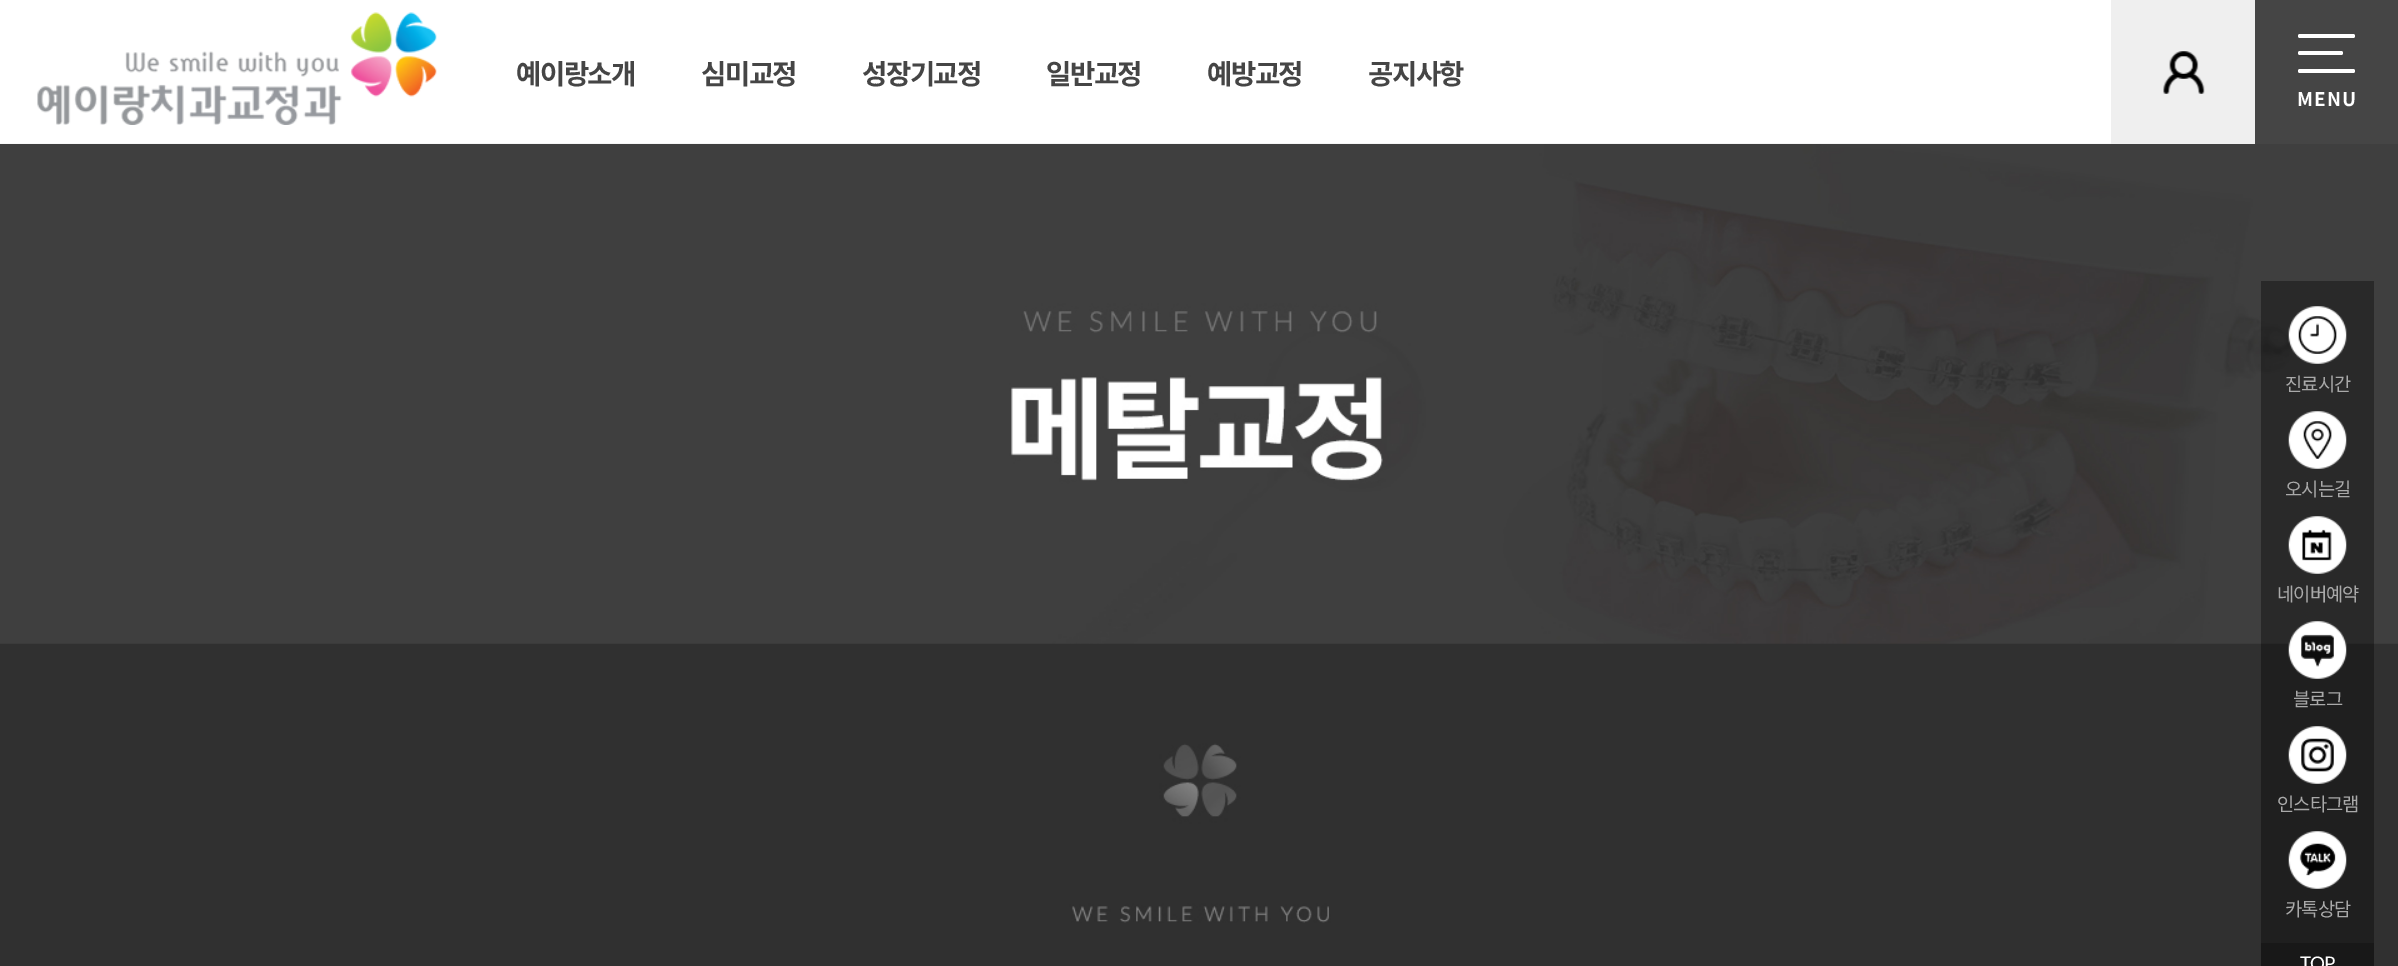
%!PS
<< /PageSize [2398 966] /PageUsesTransparency true >> setpagedevice
/rgb { 3 { 255 div 3 1 roll } repeat setrgbcolor } def
/font { [ exch dup neg 0 0 3 -1 roll 0 0 ] selectfont } def
/alpha { dup .setfillconstantalpha .setstrokeconstantalpha } def
/roundrect { 5 dict begin { /r /h /w /y /x } { exch def } forall
  x r add y moveto x w add y 2 copy h add r arct x w add y h add x 1 index r arct
  x y h add x y r arct x y 2 copy exch w add exch r arct closepath end } def
/picture { 5 dict begin { /h /w /y /x /name } { exch def } forall
  gsave x y translate w h scale
  w h 8 [w 0 0 h 0 0] name (r) file false 3 colorimage grestore end } def
0 .pushpdf14devicefilter
0 966 translate 1 -1 scale
4 setmiterlimit
255 255 255 rgb
0 0 2398 966 rectfill
(img_03.rgb) 0 143 2398 780 picture
(img_04.rgb) 450 143 1500 780 picture
0.88 alpha
0 143 2111 1 rectfill
1 alpha
(img_01.rgb) 37 12 400 113 picture
239 239 239 rgb
2111 0 144 144 rectfill
(img_02.rgb) 2163 51 42 43 picture
69 69 69 rgb
2255 0 143 144 rectfill
255 255 255 rgb
2298 34 57 4 2 roundrect fill
2298 51 45 4 2 roundrect fill
2298 69 57 4 2 roundrect fill
48 48 48 rgb
0 923 2398 43 rectfill
0.35 alpha
0 0 0 rgb
2261 281 113 662 rectfill
1 alpha
(img_05.rgb) 2288 306 59 58 picture
(img_06.rgb) 2288 411 59 58 picture
(img_07.rgb) 2288 516 59 58 picture
(img_08.rgb) 2288 621 59 58 picture
(img_09.rgb) 2288 726 59 58 picture
(img_10.rgb) 2288 831 59 58 picture
24 24 24 rgb
2261 943 113 23 rectfill
/NotoSansKR-Bold 27.5 font
69 69 69 rgb
516 84 moveto -1.5 0 (예이랑소개) ashow
701 84 moveto -1.5 0 (심미교정) ashow
862 84 moveto -1.5 0 (성장기교정) ashow
1046 84 moveto -1.5 0 (일반교정) ashow
1207 84 moveto -1.5 0 (예방교정) ashow
1368 84 moveto -1.5 0 (공지사항) ashow
/NotoSansKR-Bold 18.75 font
255 255 255 rgb
2297 106 moveto 1 0 (MENU) ashow
/NotoSansKR-Regular 18.75 font
169 169 169 rgb
2285 391 moveto -1 0 (진료시간) ashow
2285 496 moveto -1 0 (오시는길) ashow
2277 601 moveto -1 0 (네이버예약) ashow
2293 706 moveto -1 0 (블로그) ashow
2277 811 moveto -1 0 (인스타그램) ashow
2285 916 moveto -1 0 (카톡상담) ashow
/Lato-Regular 18.75 font
255 255 255 rgb
2300 970 moveto -1 0 (TOP) ashow
.poppdf14devicefilter showpage
